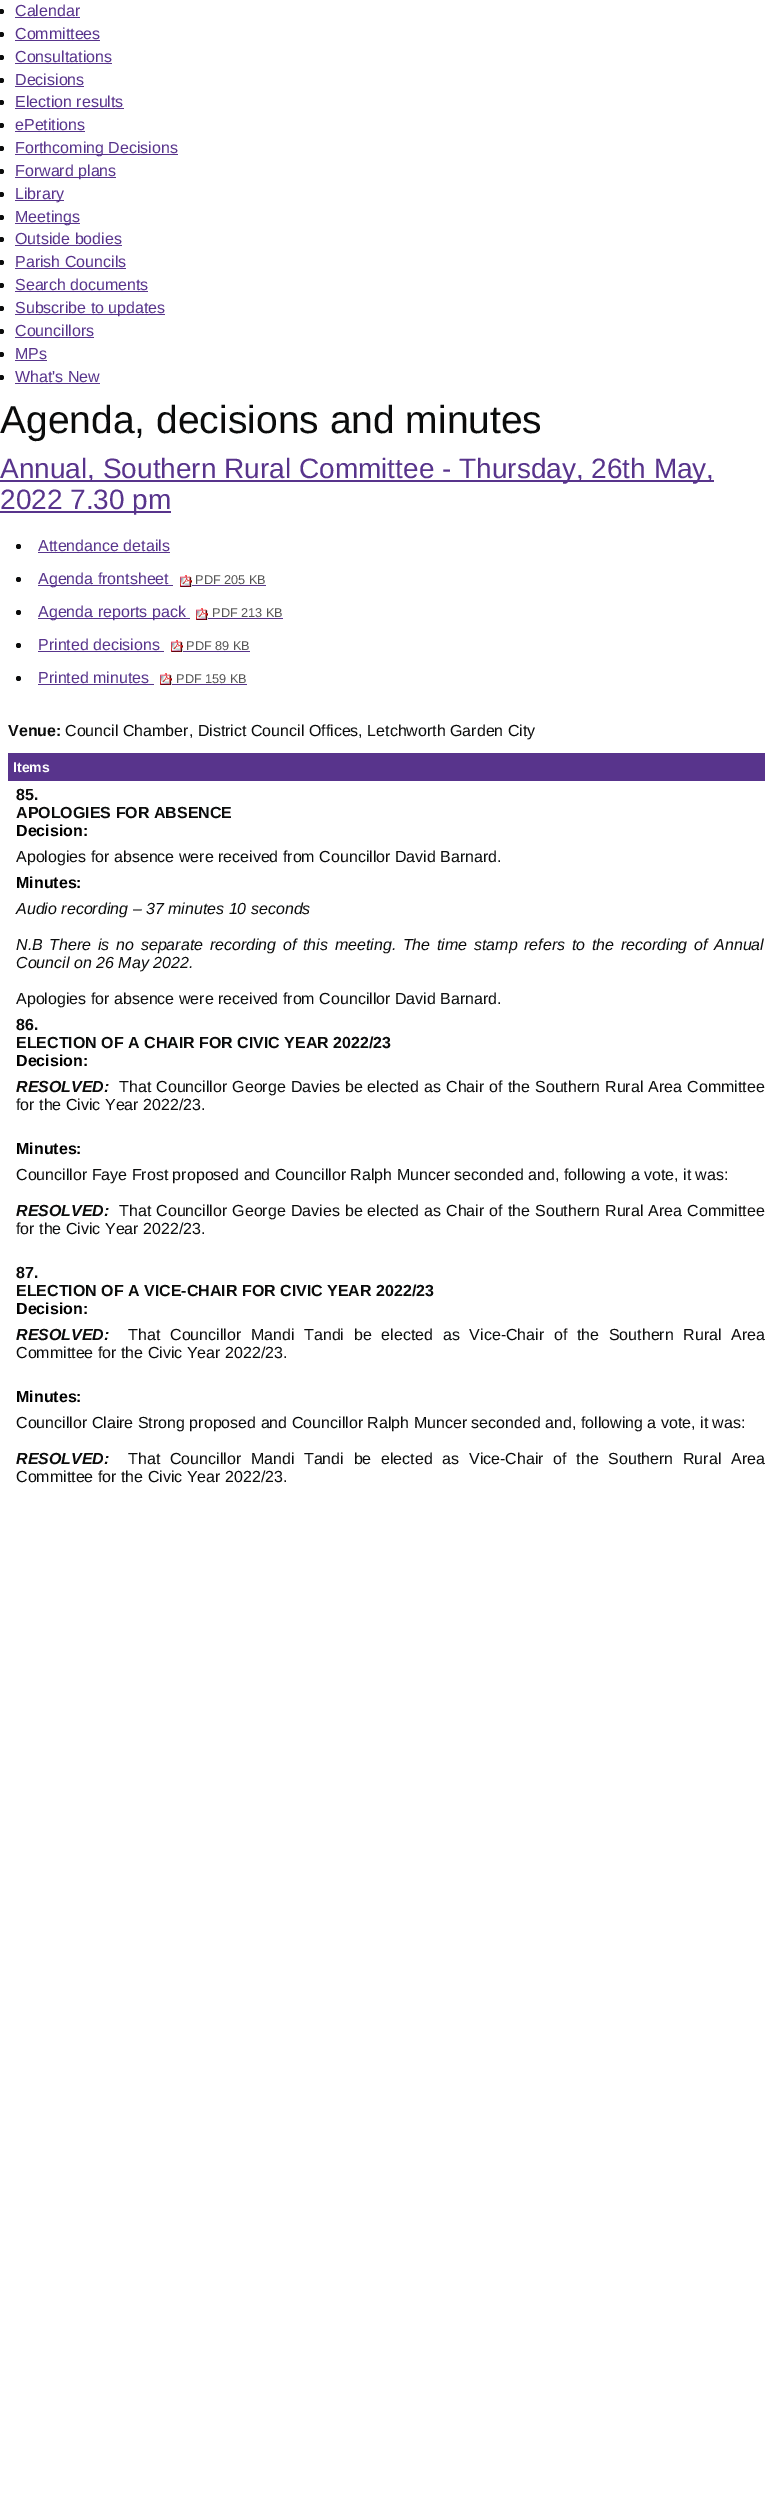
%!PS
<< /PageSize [765 2518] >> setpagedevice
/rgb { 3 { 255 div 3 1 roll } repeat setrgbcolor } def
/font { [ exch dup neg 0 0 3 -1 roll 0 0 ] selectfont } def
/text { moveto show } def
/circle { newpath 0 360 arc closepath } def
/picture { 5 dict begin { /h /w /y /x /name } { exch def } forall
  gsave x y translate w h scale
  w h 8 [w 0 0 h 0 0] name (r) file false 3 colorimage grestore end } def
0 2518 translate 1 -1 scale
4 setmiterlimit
255 255 255 rgb
0 0 765 2518 rectfill
11 12 12 rgb
1.5 11.5 2.5 circle fill
88 52 140 rgb
15 17 65 1 rectfill
11 12 12 rgb
1.5 34.5 2.5 circle fill
88 52 140 rgb
15 40 85 1 rectfill
11 12 12 rgb
1.5 57.5 2.5 circle fill
88 52 140 rgb
15 63 97 1 rectfill
11 12 12 rgb
1.5 80.5 2.5 circle fill
88 52 140 rgb
15 86 69 1 rectfill
11 12 12 rgb
1.5 102.5 2.5 circle fill
88 52 140 rgb
15 108 109 1 rectfill
11 12 12 rgb
1.5 125.5 2.5 circle fill
88 52 140 rgb
15 131 70 1 rectfill
11 12 12 rgb
1.5 148.5 2.5 circle fill
88 52 140 rgb
15 154 163 1 rectfill
11 12 12 rgb
1.5 171.5 2.5 circle fill
88 52 140 rgb
15 177 101 1 rectfill
11 12 12 rgb
1.5 194.5 2.5 circle fill
88 52 140 rgb
15 200 49 1 rectfill
11 12 12 rgb
1.5 217.5 2.5 circle fill
88 52 140 rgb
15 223 65 1 rectfill
11 12 12 rgb
1.5 239.5 2.5 circle fill
88 52 140 rgb
15 245 107 1 rectfill
11 12 12 rgb
1.5 262.5 2.5 circle fill
88 52 140 rgb
15 268 111 1 rectfill
11 12 12 rgb
1.5 285.5 2.5 circle fill
88 52 140 rgb
15 291 133 1 rectfill
11 12 12 rgb
1.5 308.5 2.5 circle fill
88 52 140 rgb
15 314 150 1 rectfill
11 12 12 rgb
1.5 331.5 2.5 circle fill
88 52 140 rgb
15 337 79 1 rectfill
11 12 12 rgb
1.5 354.5 2.5 circle fill
88 52 140 rgb
15 360 32 1 rectfill
11 12 12 rgb
1.5 377.5 2.5 circle fill
88 52 140 rgb
15 383 85 1 rectfill
0 480 714 2 rectfill
0 511 171 2 rectfill
11 12 12 rgb
18.5 546.5 2.5 circle fill
88 52 140 rgb
38 552 132 1 rectfill
11 12 12 rgb
18.5 579.5 2.5 circle fill
88 52 140 rgb
38 585 135 1 rectfill
(img_01.rgb) 180 575 12 12 picture
192 585 74 1 rectfill
11 12 12 rgb
18.5 612.5 2.5 circle fill
88 52 140 rgb
38 618 152 1 rectfill
(img_01.rgb) 196 608 12 12 picture
208 618 75 1 rectfill
11 12 12 rgb
18.5 645.5 2.5 circle fill
88 52 140 rgb
38 651 126 1 rectfill
(img_01.rgb) 171 640 12 12 picture
183 651 67 1 rectfill
11 12 12 rgb
18.5 678.5 2.5 circle fill
88 52 140 rgb
38 684 116 1 rectfill
(img_01.rgb) 160 673 12 12 picture
172 684 75 1 rectfill
8 753 757 28 rectfill
/LiberationSans-Regular 16 font
(Calendar) 15 16 text
(Committees) 15 39 text
(Consultations) 15 62 text
(Decisions) 15 85 text
(Election results) 15 107 text
(ePetitions) 15 130 text
(Forthcoming Decisions) 15 153 text
(Forward plans) 15 176 text
(Library) 15 199 text
(Meetings) 15 222 text
(Outside bodies) 15 244 text
(Parish Councils) 15 267 text
(Search documents) 15 290 text
(Subscribe to updates) 15 313 text
(Councillors) 15 336 text
(MPs) 15 359 text
(What's New) 15 382 text
/LiberationSans-Regular 39 font
11 12 12 rgb
(Agenda, decisions and minutes) 0 433 text
/LiberationSans-Regular 28 font
88 52 140 rgb
(Annual, Southern Rural Committee - Thursday, 26th May,) 0 478 text
(2022 7.30 pm) 0 509 text
/LiberationSans-Regular 16 font
(Attendance details) 38 551 text
(Agenda frontsheet) 38 584 text
/LiberationSans-Regular 12.75 font
85 85 85 rgb
(PDF 205 KB) 195 584 text
/LiberationSans-Regular 16 font
88 52 140 rgb
(Agenda reports pack) 38 617 text
/LiberationSans-Regular 12.75 font
85 85 85 rgb
(PDF 213 KB) 212 617 text
/LiberationSans-Regular 16 font
88 52 140 rgb
(Printed decisions) 38 650 text
/LiberationSans-Regular 12.75 font
85 85 85 rgb
(PDF 89 KB) 186 650 text
/LiberationSans-Regular 16 font
88 52 140 rgb
(Printed minutes) 38 683 text
/LiberationSans-Regular 12.75 font
85 85 85 rgb
(PDF 159 KB) 176 683 text
/LiberationSans-Bold 16 font
11 12 12 rgb
(Venue:) 8 736 text
/LiberationSans-Regular 16 font
(Council Chamber, District Council Offices, Letchworth Garden City) 65 736 text
/LiberationSans-Bold 14 font
255 255 255 rgb
(Items) 13 772 text
/LiberationSans-Bold 16 font
11 12 12 rgb
(85.) 16 800 text
(APOLOGIES FOR ABSENCE) 16 818 text
0 0 0 rgb
(Decision:) 16 836 text
/LiberationSans-Regular 16 font
11 12 12 rgb
(Apologies for absence were received from Councillor David Barnard.) 16 862 text
/LiberationSans-Bold 16 font
0 0 0 rgb
(Minutes:) 16 888 text
/LiberationSans-Italic 16 font
11 12 12 rgb
(Audio recording – 37 minutes 10 seconds) 16 914 text
16 950 moveto 2.25 0 32 (N.B There is no separate recording of this meeting. The time stamp refers to the recording of Annual) widthshow
(Council on 26 May 2022.) 16 968 text
/LiberationSans-Regular 16 font
(Apologies for absence were received from Councillor David Barnard.) 16 1004 text
/LiberationSans-Bold 16 font
(86.) 16 1030 text
(ELECTION OF A CHAIR FOR CIVIC YEAR 2022/23) 16 1048 text
0 0 0 rgb
(Decision:) 16 1066 text
/LiberationSans-BoldItalic 16 font
11 12 12 rgb
(RESOLVED:) 16 1092 text
/LiberationSans-Regular 16 font
119 1092 moveto 0.6 0 32 (That Councillor George Davies be elected as Chair of the Southern Rural Area Committee) widthshow
(for the Civic Year 2022/23.) 16 1110 text
/LiberationSans-Bold 16 font
0 0 0 rgb
(Minutes:) 16 1154 text
/LiberationSans-Regular 16 font
11 12 12 rgb
(Councillor Faye Frost proposed and Councillor Ralph Muncer seconded and, following a vote, it was:) 16 1180 text
/LiberationSans-BoldItalic 16 font
(RESOLVED:) 16 1216 text
/LiberationSans-Regular 16 font
119 1216 moveto 0.6 0 32 (That Councillor George Davies be elected as Chair of the Southern Rural Area Committee) widthshow
(for the Civic Year 2022/23.) 16 1234 text
/LiberationSans-Bold 16 font
(87.) 16 1278 text
(ELECTION OF A VICE-CHAIR FOR CIVIC YEAR 2022/23) 16 1296 text
0 0 0 rgb
(Decision:) 16 1314 text
/LiberationSans-BoldItalic 16 font
11 12 12 rgb
(RESOLVED:) 16 1340 text
/LiberationSans-Regular 16 font
(That) 128 1340 text
(Councillor) 170 1340 text
(Mandi) 251 1340 text
(Tandi) 304 1340 text
354 1340 moveto 5.25 0 32 (be elected as Vice-Chair of the Southern Rural Area) widthshow
(Committee for the Civic Year 2022/23.) 16 1358 text
/LiberationSans-Bold 16 font
0 0 0 rgb
(Minutes:) 16 1402 text
/LiberationSans-Regular 16 font
11 12 12 rgb
(Councillor Claire Strong proposed and Councillor Ralph Muncer seconded and, following a vote, it was:) 16 1428 text
/LiberationSans-BoldItalic 16 font
(RESOLVED:) 16 1464 text
/LiberationSans-Regular 16 font
128 1464 moveto 5.25 0 32 (That Councillor Mandi Tandi be elected as Vice-Chair of the Southern Rural Area) widthshow
(Committee for the Civic Year 2022/23.) 16 1482 text
showpage
